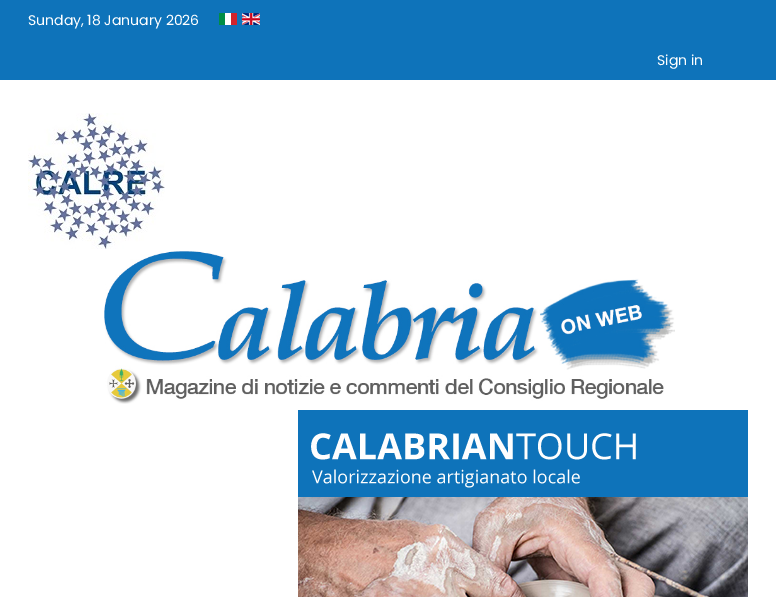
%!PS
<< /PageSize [776 597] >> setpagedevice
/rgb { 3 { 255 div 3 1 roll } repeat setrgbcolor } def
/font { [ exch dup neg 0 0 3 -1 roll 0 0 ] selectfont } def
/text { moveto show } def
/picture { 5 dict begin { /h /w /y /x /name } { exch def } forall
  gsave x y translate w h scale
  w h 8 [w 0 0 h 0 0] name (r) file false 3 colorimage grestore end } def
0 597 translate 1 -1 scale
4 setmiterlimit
255 255 255 rgb
0 0 776 597 rectfill
14 115 186 rgb
0 0 776 80 rectfill
(img_01.rgb) 219 13 18 12 picture
(img_02.rgb) 242 13 18 12 picture
(img_03.rgb) 28 113 137 136 picture
(img_04.rgb) 104 251 571 153 picture
(img_05.rgb) 298 410 450 187 picture
/Poppins-Regular 14 font
255 255 255 rgb
(Sunday, 18 January 2026) 28 25 text
(Sign in) 657 65 text
showpage
